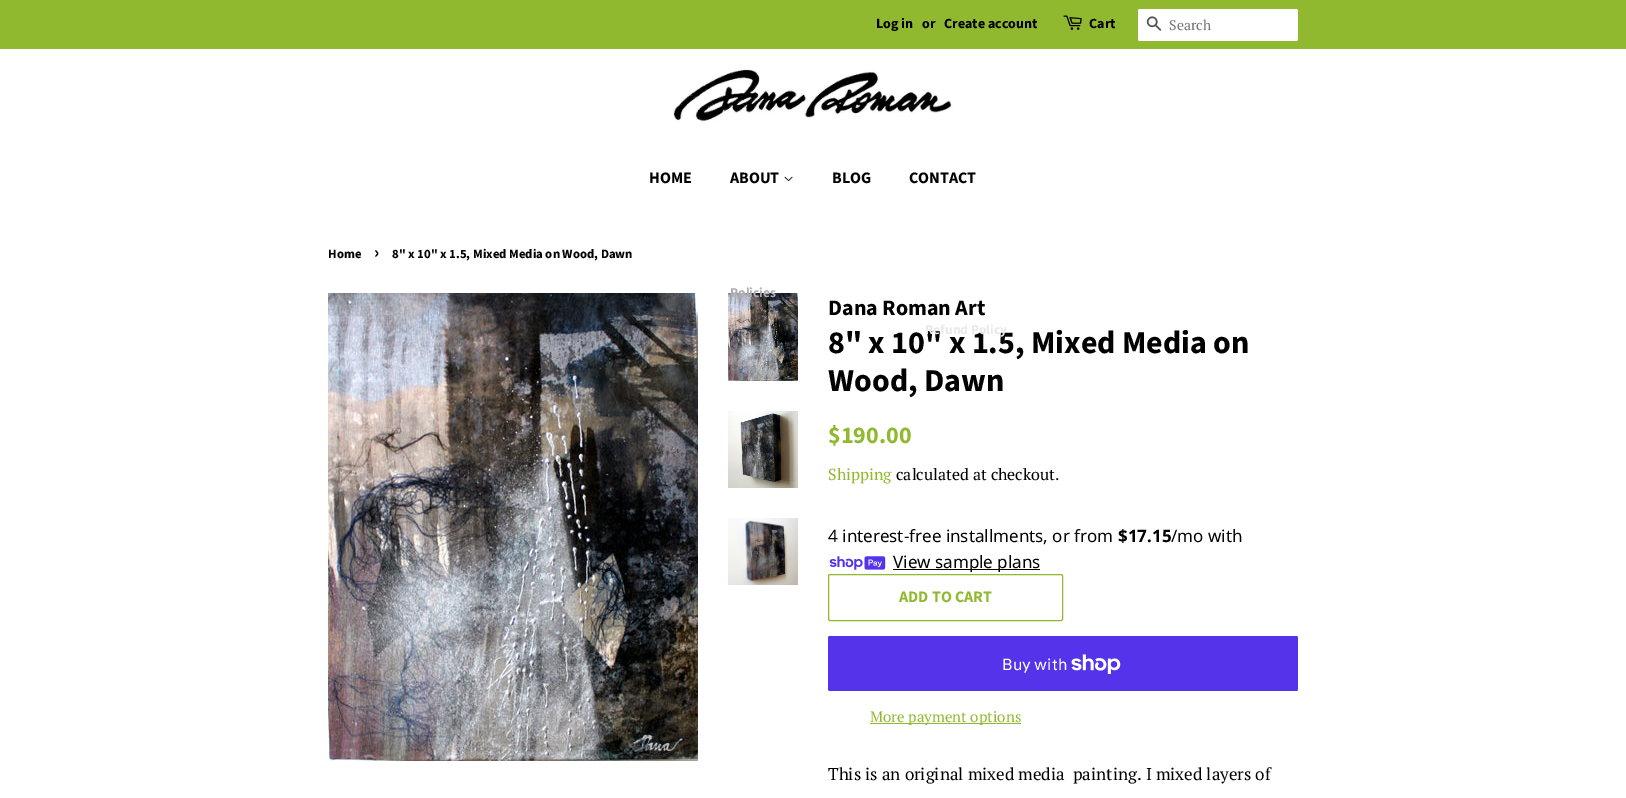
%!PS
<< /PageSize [1626 798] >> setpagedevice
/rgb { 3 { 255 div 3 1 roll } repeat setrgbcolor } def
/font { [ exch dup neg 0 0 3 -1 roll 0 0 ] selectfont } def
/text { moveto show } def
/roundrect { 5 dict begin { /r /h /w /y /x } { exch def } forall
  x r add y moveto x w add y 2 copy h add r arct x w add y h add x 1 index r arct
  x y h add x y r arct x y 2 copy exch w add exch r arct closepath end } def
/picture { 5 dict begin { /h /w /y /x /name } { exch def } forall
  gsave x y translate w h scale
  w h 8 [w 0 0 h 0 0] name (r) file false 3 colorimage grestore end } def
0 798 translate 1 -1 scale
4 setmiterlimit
255 255 255 rgb
0 0 1626 798 rectfill
144 185 47 rgb
0 0 1626 49 rectfill
(img_01.rgb) 1063 15 19 15 picture
255 255 255 rgb
1138 9 160 32 2 roundrect fill
(img_02.rgb) 1146 16 16 15 picture
(img_03.rgb) 673 69 280 53 picture
(img_04.rgb) 784 176 9 6 picture
(img_05.rgb) 328 293 370 468 picture
(img_06.rgb) 728 293 70 88 picture
(img_07.rgb) 728 411 70 77 picture
(img_08.rgb) 728 518 70 67 picture
(img_09.rgb) 829 556 57 14 picture
0 0 0 rgb
893 569 147 1 rectfill
144 185 47 rgb
828.5 574.5 234 46 1.5 roundrect stroke
84 51 235 rgb
828 636 470 55 2 roundrect fill
(img_10.rgb) 1071 654 50 20 picture
144 185 47 rgb
870 723 151 1 rectfill
/SourceSansPro-Bold 14 font
0 0 0 rgb
(Log in) 876 28 text
(or) 922 28 text
(Create account) 944 28 text
(Cart) 1089 28 text
/PTSerif-Regular 14 font
117 117 117 rgb
(Search) 1169 30 text
/SourceSansPro-Bold 16 font
0 0 0 rgb
(HOME) 649 183 text
(ABOUT) 730 183 text
/SourceSansPro-Bold 13.5 font
173 173 177 rgb
(Policies) 730 297 text
/SourceSansPro-Bold 16 font
0 0 0 rgb
(BLOG) 832 183 text
(CONTACT) 909 183 text
/SourceSansPro-Bold 12.75 font
(Home) 328 258 text
/SourceSansPro-Bold 18 font
(›) 374 258 text
/SourceSansPro-Bold 12.75 font
(8" x 10" x 1.5, Mixed Media on Wood, Dawn) 392 258 text
/SourceSansPro-Bold 22 font
(Dana Roman Art) 828 315 text
/SourceSansPro-Bold 32 font
(8" x 10" x 1.5, Mixed Media on) 828 353 text
/SourceSansPro-Bold 13.5 font
233 233 233 rgb
(Refund Policy) 925 334 text
/SourceSansPro-Bold 32 font
0 0 0 rgb
(Wood, Dawn) 828 391 text
/SourceSansPro-Bold 24 font
144 185 47 rgb
($190.00) 828 443 text
/PTSerif-Regular 16 font
(Shipping) 828 480 text
0 0 0 rgb
(calculated at checkout.) 896 480 text
/NotoSans-Regular 17 font
(4 interest-free installments, or from) 828 542 text
/NotoSans-Bold 17 font
($17.15) 1118 542 text
/NotoSans-Regular 17 font
(/mo with) 1171 542 text
(View sample plans) 893 568 text
/SourceSansPro-Bold 16 font
144 185 47 rgb
(ADD TO CART) 899 602 text
/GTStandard-Regular 16 font
255 255 255 rgb
(Buy with) 1002 670 text
/PTSerif-Regular 15 font
144 185 47 rgb
(More payment options) 870 722 text
/PTSerif-Regular 17 font
0 0 0 rgb
(This is an original mixed media  painting. I mixed layers of) 828 780 text
showpage
